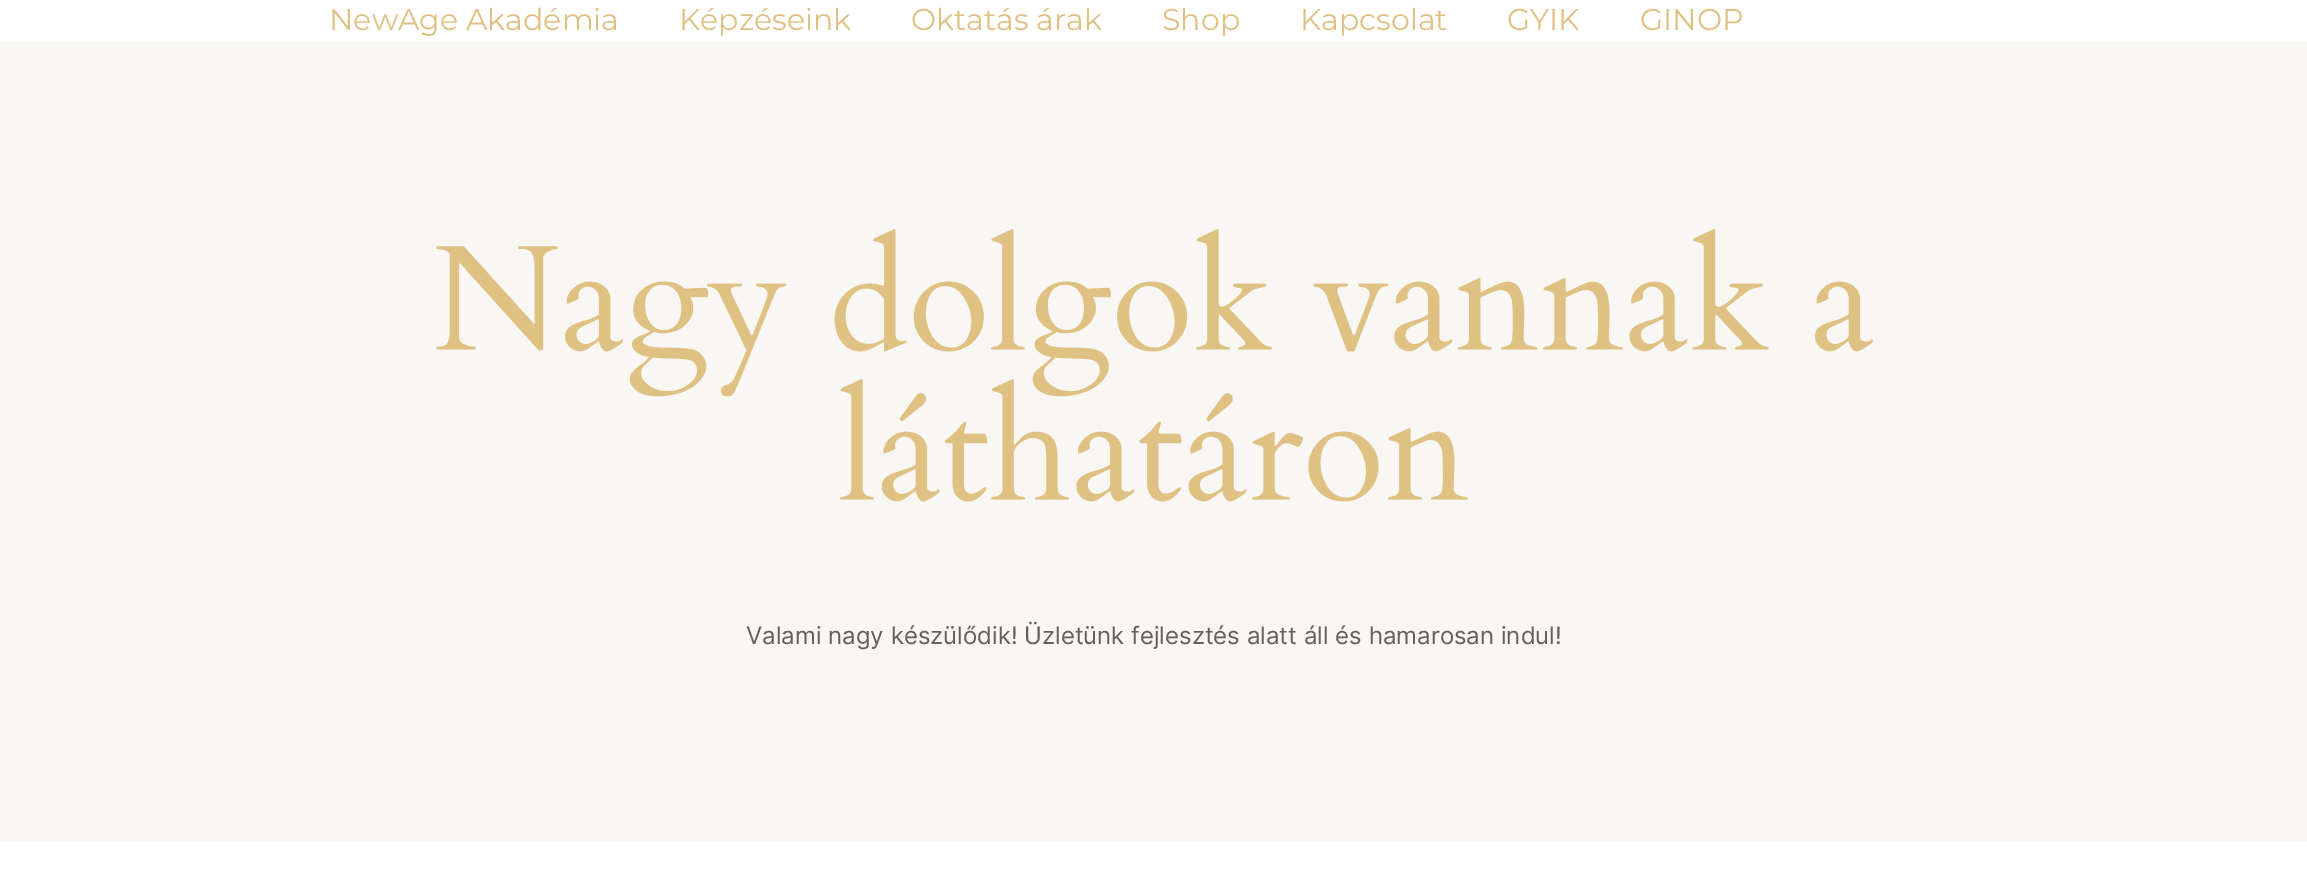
%!PS
<< /PageSize [2307 876] >> setpagedevice
/rgb { 3 { 255 div 3 1 roll } repeat setrgbcolor } def
/font { [ exch dup neg 0 0 3 -1 roll 0 0 ] selectfont } def
/text { moveto show } def
/picture { 5 dict begin { /h /w /y /x /name } { exch def } forall
  gsave x y translate w h scale
  w h 8 [w 0 0 h 0 0] name (r) file false 3 colorimage grestore end } def
0 876 translate 1 -1 scale
4 setmiterlimit
248 247 243 rgb
0 0 2307 876 rectfill
255 255 255 rgb
0 0 2307 42 rectfill
(img_01.rgb) 436 229 1437 168 picture
(img_02.rgb) 840 379 628 123 picture
0 842 2307 34 rectfill
/Montserrat-Thin 30 font
224 193 132 rgb
(NewAge Akadémia) 329 30 text
(Képzéseink) 679 30 text
(Oktatás árak) 911 30 text
(Shop) 1162 30 text
(Kapcsolat) 1300 30 text
(GYIK) 1507 30 text
(GINOP) 1640 30 text
/Inter-Regular 24 font
98 97 92 rgb
(Valami nagy készülődik! Üzletünk fejlesztés alatt áll és hamarosan indul!) 746 644 text
showpage
